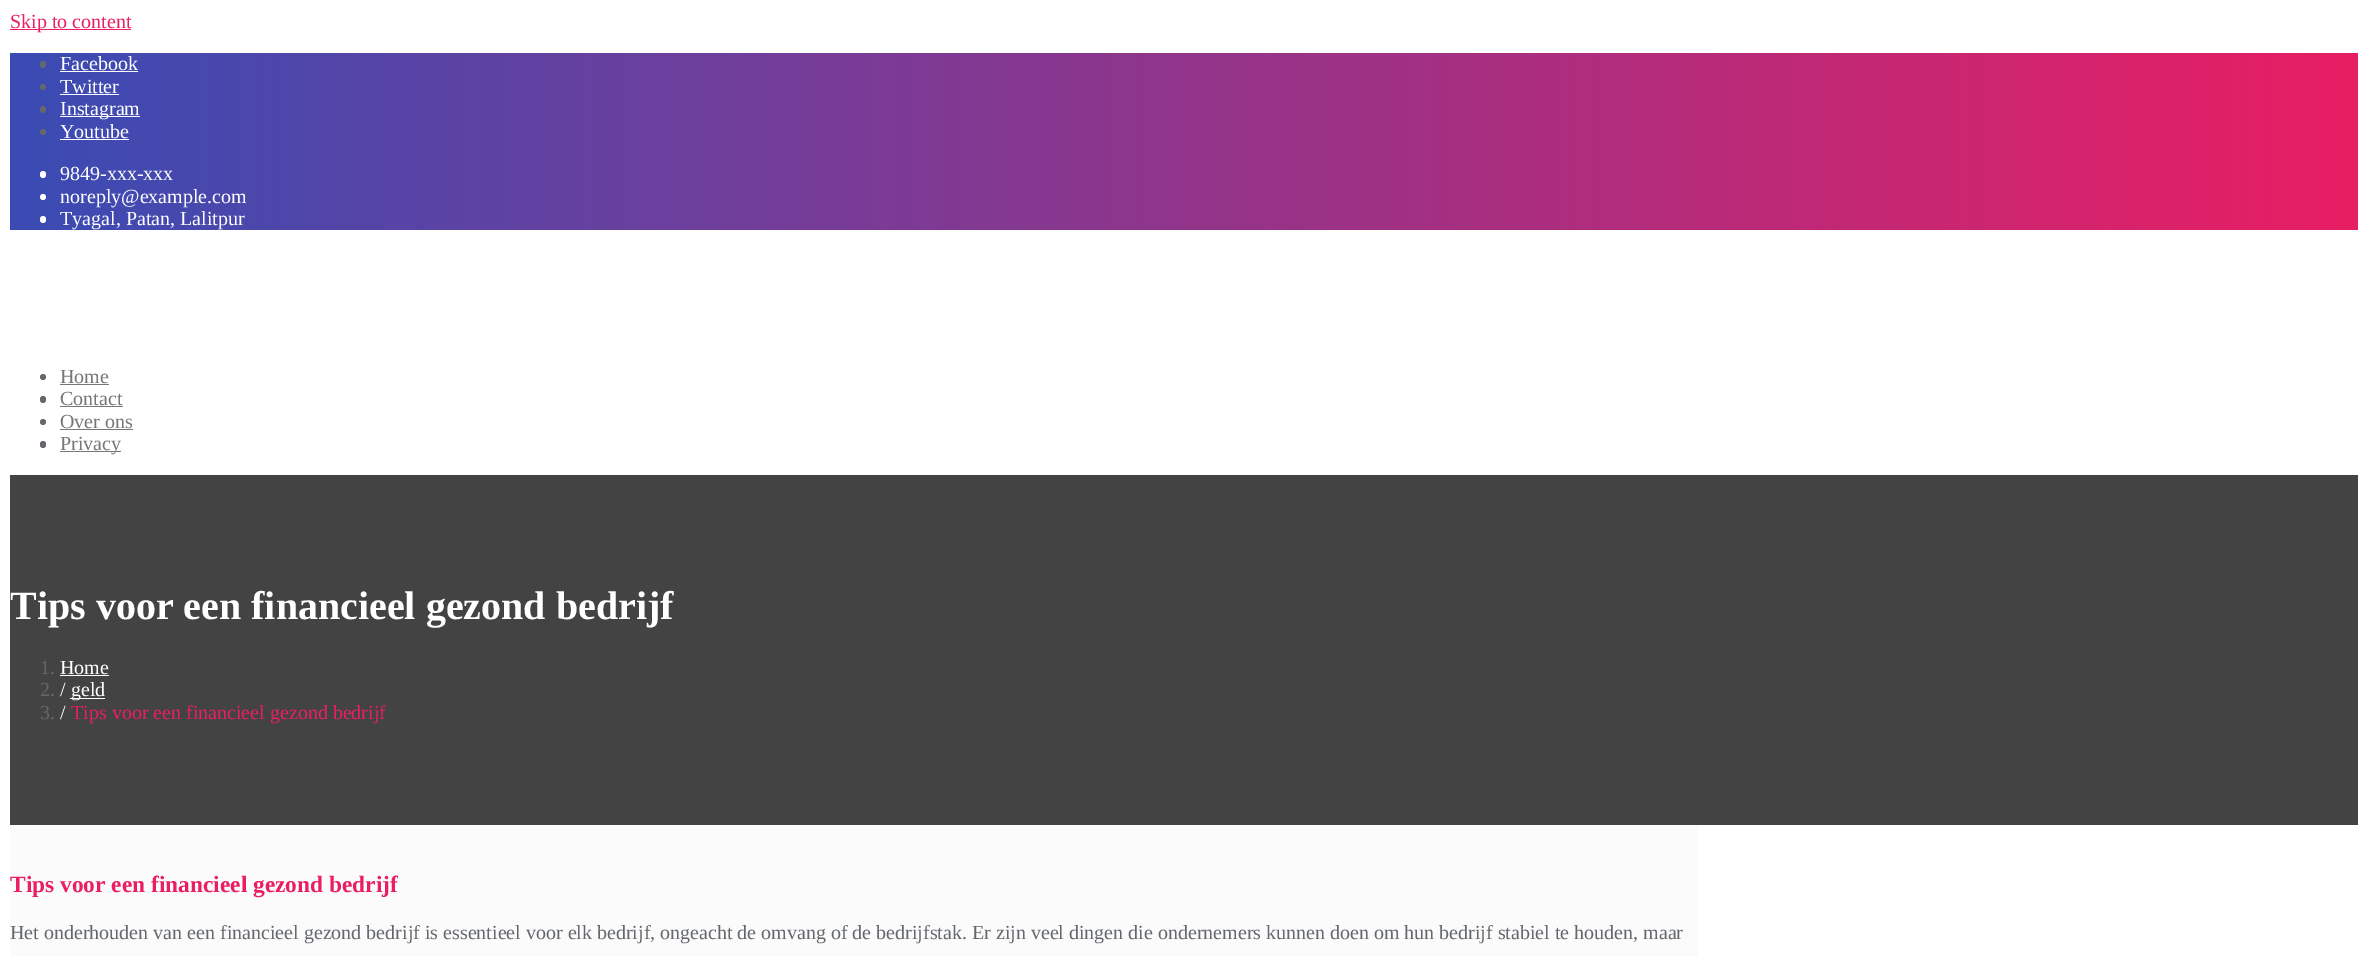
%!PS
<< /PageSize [2367 956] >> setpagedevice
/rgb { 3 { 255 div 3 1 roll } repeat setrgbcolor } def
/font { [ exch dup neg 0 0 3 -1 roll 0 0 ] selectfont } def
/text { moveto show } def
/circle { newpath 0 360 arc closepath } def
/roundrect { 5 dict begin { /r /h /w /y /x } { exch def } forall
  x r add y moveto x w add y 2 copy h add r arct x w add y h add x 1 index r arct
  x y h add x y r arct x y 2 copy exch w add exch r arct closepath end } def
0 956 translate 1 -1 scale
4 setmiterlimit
255 255 255 rgb
0 0 2367 956 rectfill
233 30 99 rgb
10 29 121 1 rectfill
gsave 10 53 moveto 2348 0 rlineto 0 177 rlineto -2348 0 rlineto closepath clip newpath
<< /ShadingType 2 /ColorSpace /DeviceRGB /Coords [10 141 2358 141] /Extend [true true] /Function << /FunctionType 2 /Domain [0 1] /C0 [0.227 0.298 0.706] /C1 [0.914 0.118 0.388] /N 1 >> >> shfill grestore
100 104 109 rgb
40 61 6 7 3 roundrect fill
255 255 255 rgb
60 71 78 1 rectfill
100 104 109 rgb
43 87 3 circle fill
255 255 255 rgb
60 94 59 1 rectfill
100 104 109 rgb
40 106 6 7 3 roundrect fill
255 255 255 rgb
60 116 80 1 rectfill
100 104 109 rgb
43 132 3 circle fill
255 255 255 rgb
60 139 69 1 rectfill
40 171 6 7 3 roundrect fill
43 197 3 circle fill
40 216 6 7 3 roundrect fill
100 104 109 rgb
43 377 3 circle fill
119 119 119 rgb
60 384 49 1 rectfill
100 104 109 rgb
40 396 6 7 3 roundrect fill
119 119 119 rgb
60 406 63 1 rectfill
100 104 109 rgb
43 422 3 circle fill
119 119 119 rgb
60 429 73 1 rectfill
100 104 109 rgb
40 441 6 7 3 roundrect fill
119 119 119 rgb
60 451 61 1 rectfill
67 67 67 rgb
10 475 2348 350 rectfill
255 255 255 rgb
60 675 49 1 rectfill
70 698 35 1 rectfill
251 251 251 rgb
10 825 1688 131 rectfill
/LiberationSerif-Regular 20 font
233 30 99 rgb
(Skip to content) 10 28 text
255 255 255 rgb
(Facebook) 60 70 text
(Twitter) 60 93 text
(Instagram) 60 115 text
(Youtube) 60 138 text
(9849-xxx-xxx) 60 180 text
(noreply@example.com) 60 203 text
(Tyagal, Patan, Lalitpur) 60 225 text
119 119 119 rgb
(Home) 60 383 text
(Contact) 60 405 text
(Over ons) 60 428 text
(Privacy) 60 450 text
/LiberationSerif-Bold 40 font
255 255 255 rgb
(Tips voor een financieel gezond bedrijf) 10 619 text
/LiberationSerif-Regular 20 font
100 104 109 rgb
(1.) 40 674 text
255 255 255 rgb
(Home) 60 674 text
100 104 109 rgb
(2.) 40 696 text
255 255 255 rgb
(/) 60 696 text
(geld) 71 696 text
100 104 109 rgb
(3.) 40 719 text
255 255 255 rgb
(/) 60 719 text
233 30 99 rgb
(Tips voor een financieel gezond bedrijf) 71 719 text
/LiberationSerif-Bold 23.4 font
(Tips voor een financieel gezond bedrijf) 10 892 text
/LiberationSerif-Regular 20 font
100 104 109 rgb
(Het onderhouden van een financieel gezond bedrijf is essentieel voor elk bedrijf, ongeacht de omvang of de bedrijfstak. Er zijn veel dingen die ondernemers kunnen doen om hun bedrijf stabiel te houden, maar) 10 939 text
showpage
